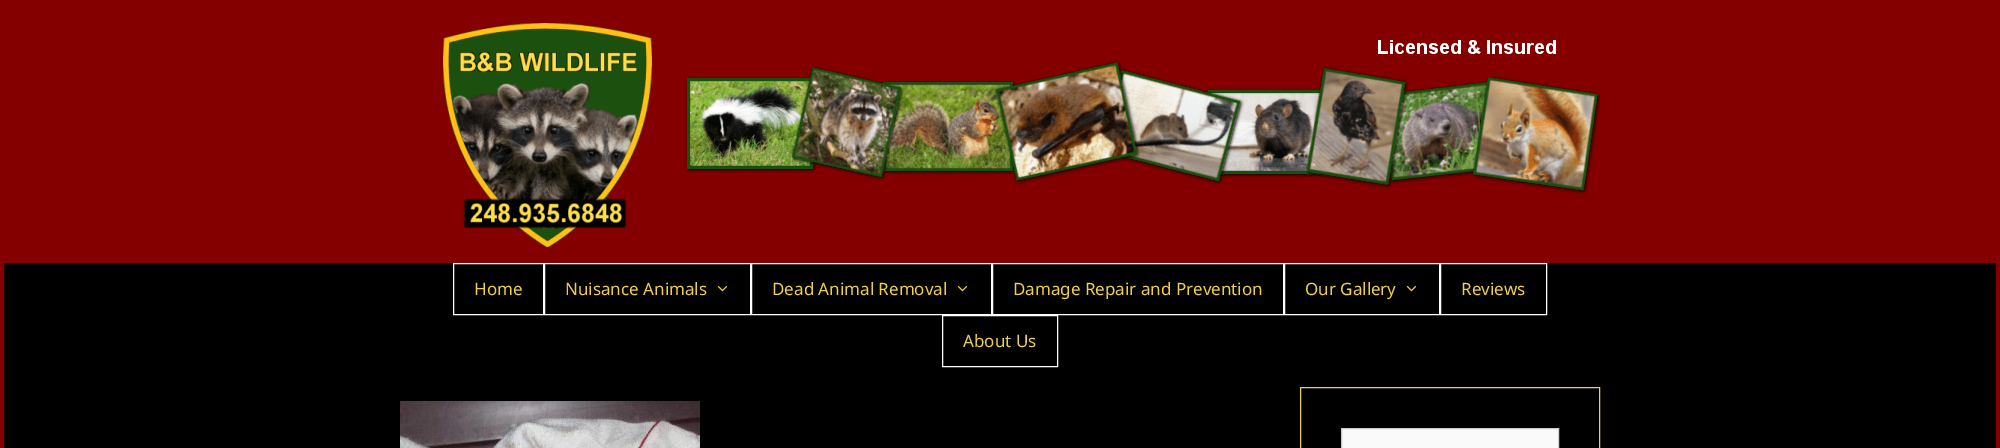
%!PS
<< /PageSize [2000 448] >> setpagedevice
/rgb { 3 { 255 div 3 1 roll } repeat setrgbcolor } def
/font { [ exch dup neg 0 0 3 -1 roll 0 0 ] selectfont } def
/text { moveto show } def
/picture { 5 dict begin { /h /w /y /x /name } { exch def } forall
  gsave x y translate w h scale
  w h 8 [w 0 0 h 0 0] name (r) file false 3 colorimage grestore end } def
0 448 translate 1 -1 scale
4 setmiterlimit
0 0 0 rgb
0 0 2000 448 rectfill
132 0 0 rgb
4 setlinewidth
2 2 1996 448 rectstroke
4 4 1992 259 rectfill
(img_01.rgb) 443 23 209 224 picture
(img_02.rgb) 685 40 915 155 picture
255 255 255 rgb
1 setlinewidth
453.5 263.5 90 51 rectstroke
544.5 263.5 206 51 rectstroke
(img_03.rgb) 717 285 11 7 picture
751.5 263.5 240 51 rectstroke
(img_03.rgb) 957 285 11 7 picture
992.5 263.5 291 51 rectstroke
1284.5 263.5 155 51 rectstroke
(img_03.rgb) 1406 285 11 7 picture
1440.5 263.5 106 51 rectstroke
942.5 315.5 115 51 rectstroke
(img_04.rgb) 400 401 300 47 picture
240 209 69 rgb
1300.5 387.5 299 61 rectstroke
250 250 250 rgb
1341.5 428.5 moveto 217 0 rlineto 0 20 rlineto -217 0 rlineto closepath gsave fill grestore
204 204 204 rgb
stroke
/NotoSans-Regular 17 font
240 209 69 rgb
(Home) 474 295 text
(Nuisance Animals) 565 295 text
(Dead Animal Removal) 772 295 text
(Damage Repair and Prevention) 1013 295 text
(Our Gallery) 1305 295 text
(Reviews) 1461 295 text
(About Us) 963 347 text
showpage
